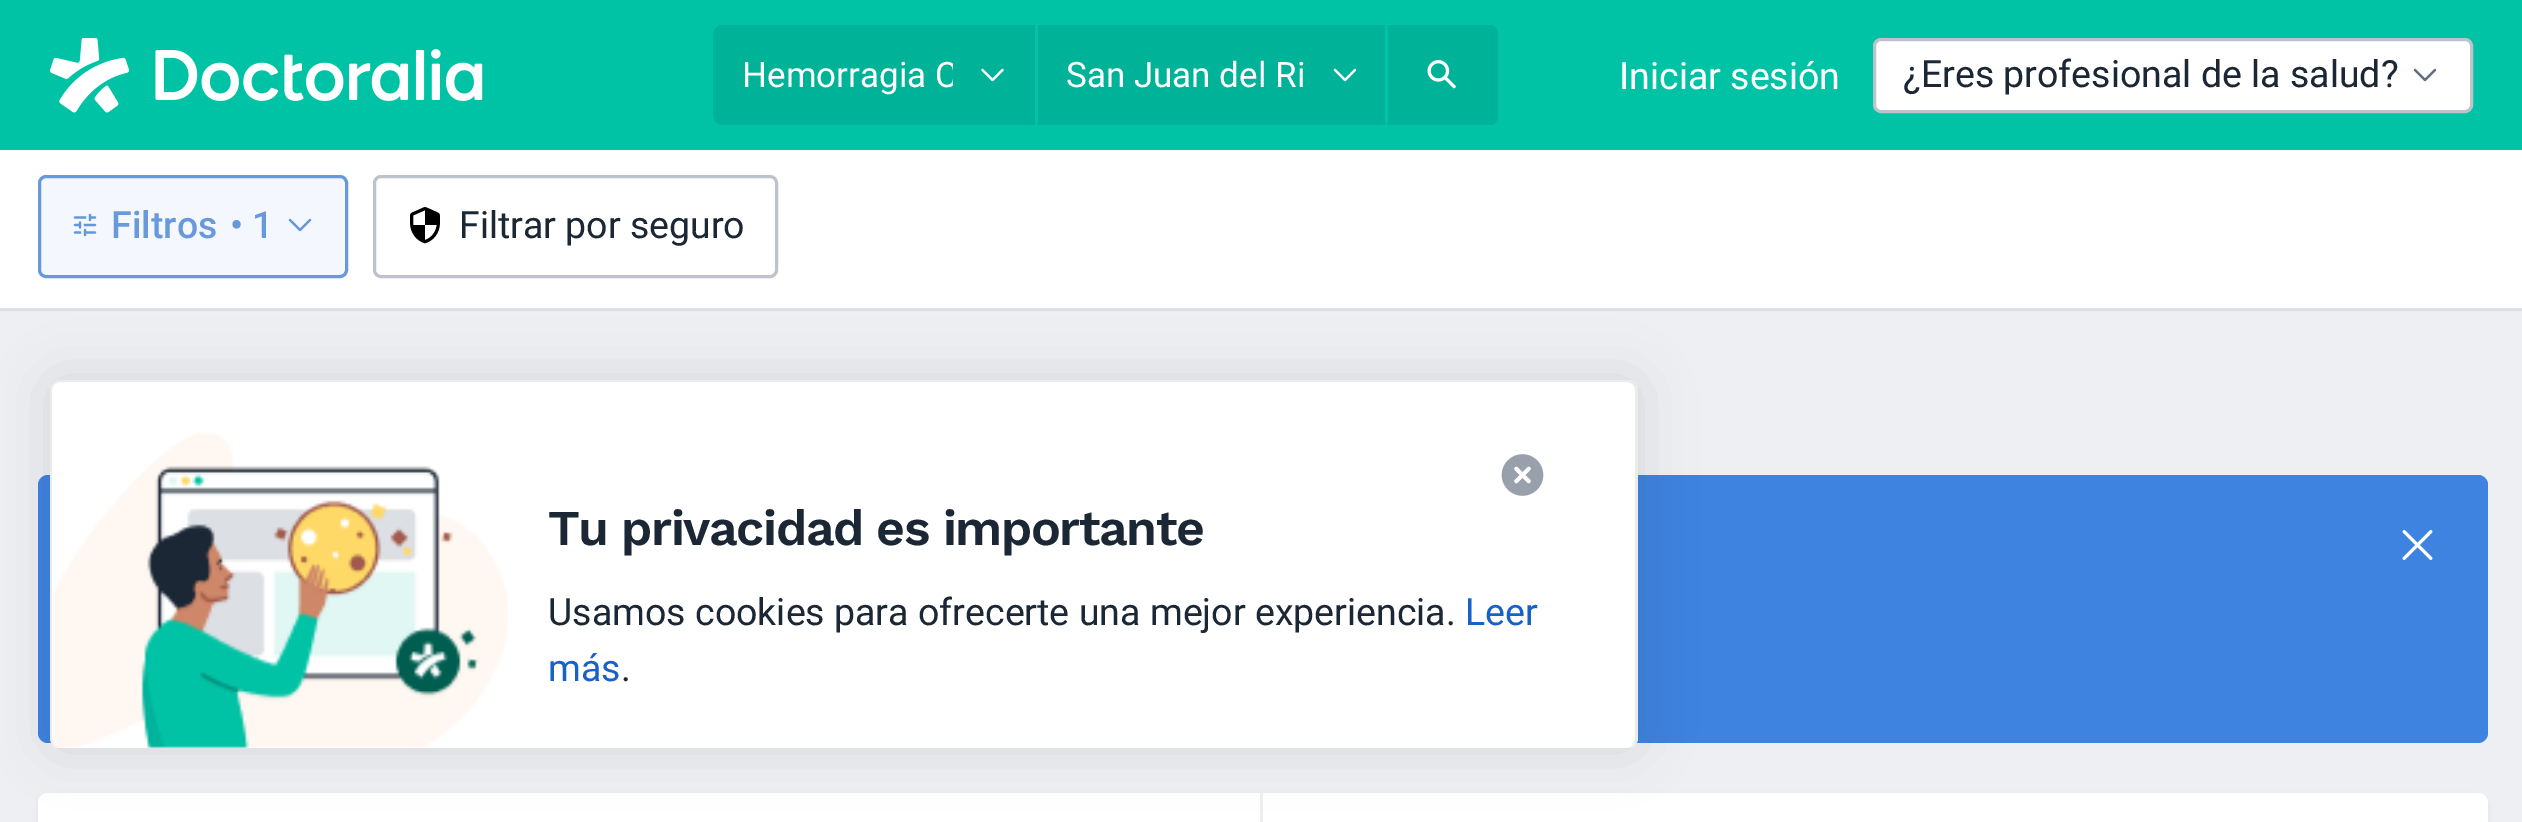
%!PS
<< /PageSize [2522 822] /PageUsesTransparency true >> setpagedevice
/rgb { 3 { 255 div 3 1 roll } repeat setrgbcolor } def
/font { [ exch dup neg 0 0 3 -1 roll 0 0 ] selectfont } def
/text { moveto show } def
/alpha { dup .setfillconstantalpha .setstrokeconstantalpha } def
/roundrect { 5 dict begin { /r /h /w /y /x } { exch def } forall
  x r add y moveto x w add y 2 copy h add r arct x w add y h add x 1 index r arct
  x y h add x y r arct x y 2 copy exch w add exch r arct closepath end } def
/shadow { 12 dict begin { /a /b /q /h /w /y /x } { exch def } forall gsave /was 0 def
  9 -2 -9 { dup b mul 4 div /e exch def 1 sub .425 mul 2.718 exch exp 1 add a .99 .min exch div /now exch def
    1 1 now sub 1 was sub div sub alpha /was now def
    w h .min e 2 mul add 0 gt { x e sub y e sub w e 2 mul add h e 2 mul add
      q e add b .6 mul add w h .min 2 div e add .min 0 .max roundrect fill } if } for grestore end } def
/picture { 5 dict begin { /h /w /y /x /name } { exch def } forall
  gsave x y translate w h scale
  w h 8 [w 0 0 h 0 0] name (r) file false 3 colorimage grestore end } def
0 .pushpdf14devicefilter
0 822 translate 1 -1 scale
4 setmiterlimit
237 239 242 rgb
0 0 2522 822 rectfill
0 195 165 rgb
0 0 2522 150 rectfill
(img_01.rgb) 50 38 433 75 picture
0 179 152 rgb
723 25 moveto 312 0 rlineto 0 100 rlineto -312 0 rlineto -5.5 0 -10 -4.5 -10 -10 rcurveto 0 -80 rlineto 0 -5.5 4.5 -10 10 -10 rcurveto closepath fill
(img_02.rgb) 981 68 23 14 picture
1038 25 347 100 rectfill
(img_03.rgb) 1333 68 24 14 picture
1388 25 moveto 102 0 rlineto 4.5 0 8 3.5 8 8 rcurveto 0 84 rlineto 0 4.5 -3.5 8 -8 8 rcurveto -102 0 rlineto closepath fill
(img_04.rgb) 1427 60 29 29 picture
255 255 255 rgb
1874.5 39.5 597 72 6.5 roundrect gsave fill grestore
190 195 203 rgb
3 setlinewidth
stroke
(img_05.rgb) 2413 68 24 14 picture
255 255 255 rgb
0 150 2522 158 rectfill
220 223 227 rgb
0 308 2522 3 rectfill
244 248 254 rgb
39.5 176.5 307 100 6.5 roundrect gsave fill grestore
104 153 218 rgb
stroke
(img_06.rgb) 73 213 24 24 picture
(img_07.rgb) 288 218 24 14 picture
190 195 203 rgb
374.5 176.5 402 100 6.5 roundrect stroke
(img_08.rgb) 410 207 30 37 picture
61 131 223 rgb
38 475 2450 268 10 roundrect fill
(img_09.rgb) 2402 530 31 30 picture
0 0 0 rgb
38 795 2450 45 10 2.5 0.05 shadow
255 255 255 rgb
38 793 2450 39 10 roundrect fill
237 239 242 rgb
1260 793 3 29 rectfill
0 0 0 rgb
50 380 1588 368 10 27.5 0.1 shadow
255 255 255 rgb
50 380 1588 368 10 roundrect fill
0.08 alpha
0 0 0 rgb
60 380 moveto 1567 0 rlineto 6 0 11 4 11 10 rcurveto 0 347 rlineto 0 6 -5 11 -11 11 rcurveto -1567 0 rlineto -6 0 -10 -5 -10 -11 rcurveto 0 -347 rlineto 0 -6 4 -10 10 -10 rcurveto closepath 60 382 moveto 1567 0 rlineto 5 0 8 4 8 8 rcurveto 0 347 rlineto 0 6 -3 11 -8 11 rcurveto -1567 0 rlineto -4 0 -8 -5 -8 -11 rcurveto 0 -347 rlineto 0 -4 4 -8 8 -8 rcurveto closepath eofill
1 alpha
(img_10.rgb) 52 432 457 316 picture
(img_11.rgb) 1501 454 43 42 picture
gsave
743 55 210 40 rectclip
/Roboto-Regular 35 font
255 255 255 rgb
(Hemorragia C) 742 87 text
grestore
/Roboto-Regular 35 font
255 255 255 rgb
(San Juan del Ri) 1066 87 text
/Roboto-Regular 37.5 font
(Iniciar sesión) 1619 89 text
27 39 52 rgb
(¿Eres profesional de la salud?) 1903 87 text
/Roboto-Medium 37.5 font
104 153 218 rgb
(Filtros) 111 238 text
(• 1) 230 238 text
/Roboto-Regular 37.5 font
27 39 52 rgb
(Filtrar por seguro) 459 238 text
/WorkSans-SemiBold 50 font
548 545 moveto -1.5 0 (Tu privacidad es importante) ashow
/Roboto-Regular 37.5 font
(Usamos cookies para ofrecerte una mejor experiencia.) 548 625 text
22 98 198 rgb
(Leer) 1465 625 text
(más) 548 681 text
27 39 52 rgb
(.) 621 681 text
.poppdf14devicefilter showpage
